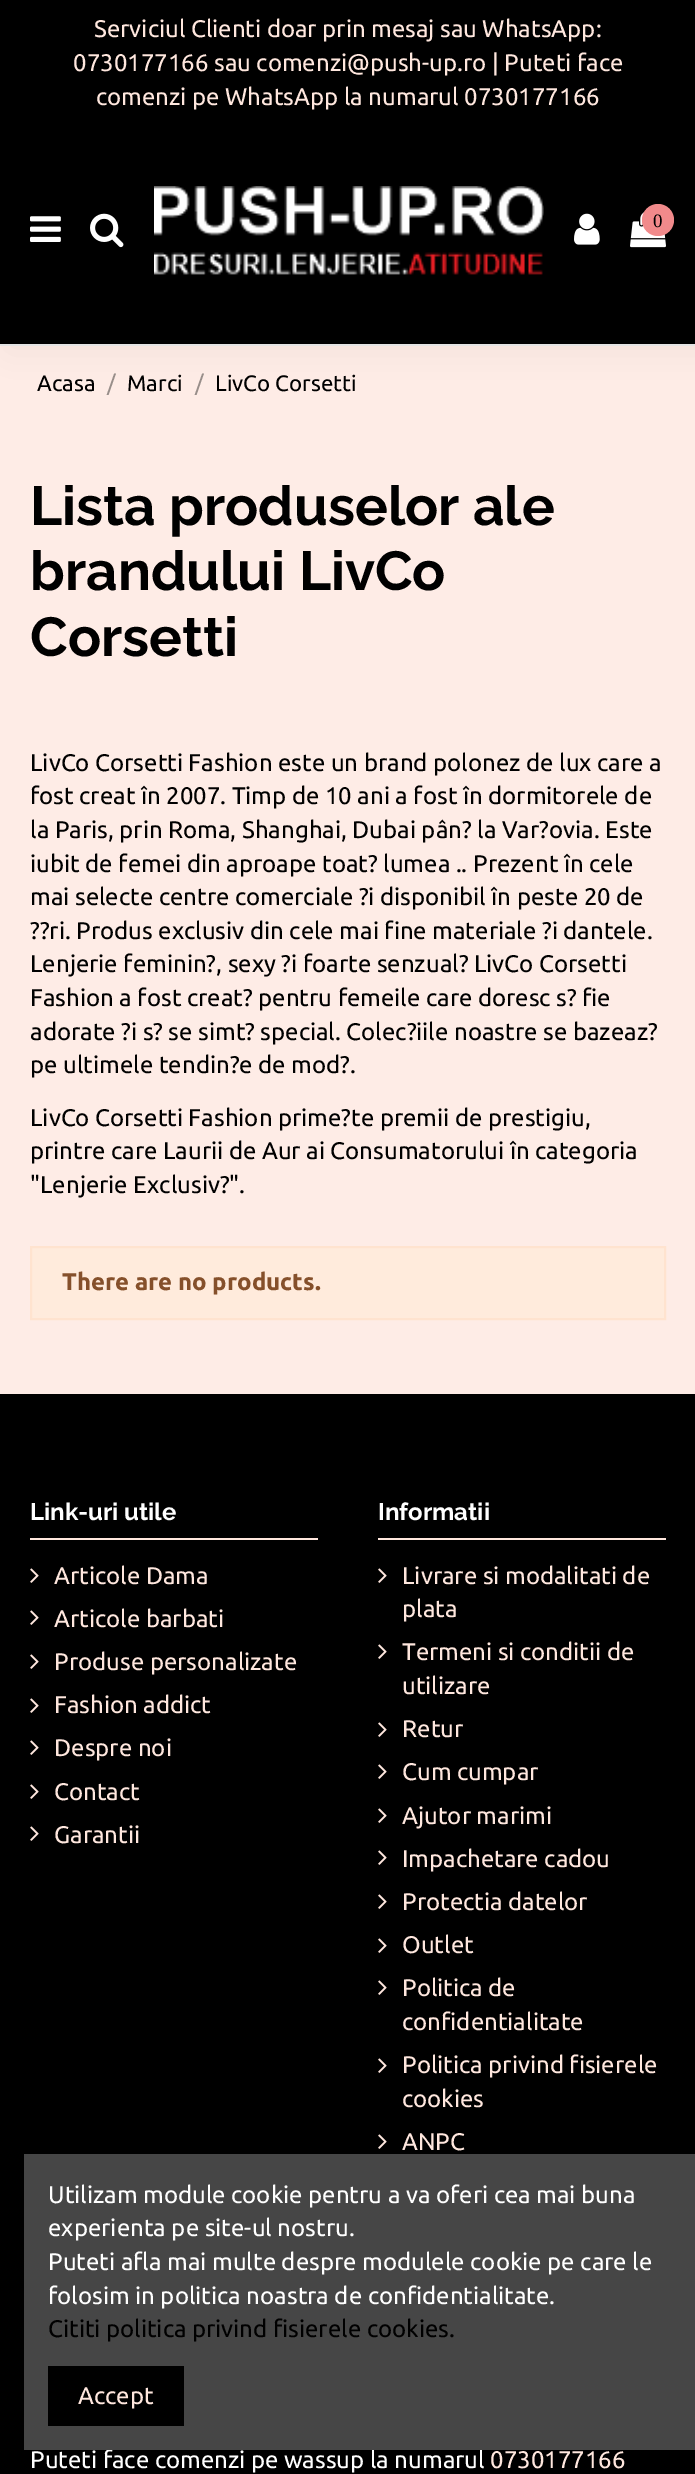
%!PS
<< /PageSize [695 2474] /PageUsesTransparency true >> setpagedevice
/rgb { 3 { 255 div 3 1 roll } repeat setrgbcolor } def
/font { [ exch dup neg 0 0 3 -1 roll 0 0 ] selectfont } def
/text { moveto show } def
/alpha { dup .setfillconstantalpha .setstrokeconstantalpha } def
/circle { newpath 0 360 arc closepath } def
/roundrect { 5 dict begin { /r /h /w /y /x } { exch def } forall
  x r add y moveto x w add y 2 copy h add r arct x w add y h add x 1 index r arct
  x y h add x y r arct x y 2 copy exch w add exch r arct closepath end } def
/shadow { 12 dict begin { /a /b /q /h /w /y /x } { exch def } forall gsave /was 0 def
  9 -2 -9 { dup b mul 4 div /e exch def 1 sub .425 mul 2.718 exch exp 1 add a .99 .min exch div /now exch def
    1 1 now sub 1 was sub div sub alpha /was now def
    w h .min e 2 mul add 0 gt { x e sub y e sub w e 2 mul add h e 2 mul add
      q e add b .6 mul add w h .min 2 div e add .min 0 .max roundrect fill } if } for grestore end } def
/picture { 5 dict begin { /h /w /y /x /name } { exch def } forall
  gsave x y translate w h scale
  w h 8 [w 0 0 h 0 0] name (r) file false 3 colorimage grestore end } def
0 .pushpdf14devicefilter
0 2474 translate 1 -1 scale
4 setmiterlimit
254 236 230 rgb
0 0 695 2474 rectfill
61 57 57 rgb
10 0 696 346 0 15 0.09 shadow
0 0 0 rgb
0 0 695 344 rectfill
227 227 227 rgb
0 344 695 2 rectfill
(img_01.rgb) 30 216 31 26 picture
(img_02.rgb) 90 213 34 35 picture
(img_03.rgb) 154 186 390 89 picture
(img_04.rgb) 574 213 26 32 picture
(img_05.rgb) 630 211 36 37 picture
241 138 139 rgb
658 220 16 circle fill
255 235 220 rgb
31 1247 moveto 634 0 rlineto 0 72 rlineto -634 0 rlineto closepath gsave fill grestore
255 227 207 rgb
2 setlinewidth
stroke
0 0 0 rgb
0 1394 695 1080 rectfill
255 231 222 rgb
30 1538 288 2 rectfill
(img_06.rgb) 30 1568 9 15 picture
(img_06.rgb) 30 1610 9 15 picture
(img_06.rgb) 30 1654 9 15 picture
(img_06.rgb) 30 1698 9 15 picture
(img_06.rgb) 30 1740 9 15 picture
(img_06.rgb) 30 1784 9 15 picture
(img_06.rgb) 30 1826 9 15 picture
378 1538 288 2 rectfill
(img_06.rgb) 378 1568 9 15 picture
(img_06.rgb) 378 1644 9 15 picture
(img_06.rgb) 378 1722 9 15 picture
(img_06.rgb) 378 1764 9 15 picture
(img_06.rgb) 378 1808 9 15 picture
(img_06.rgb) 378 1850 9 15 picture
(img_06.rgb) 378 1894 9 15 picture
(img_06.rgb) 378 1938 9 15 picture
(img_06.rgb) 378 1980 9 15 picture
(img_06.rgb) 378 2058 9 15 picture
(img_06.rgb) 378 2134 9 15 picture
/Ubuntu-Regular 24 font
(Serviciul Clienti doar prin mesaj sau WhatsApp:) 94 37 text
(0730177166 sau comenzi@push-up.ro | Puteti face) 73 71 text
(comenzi pe WhatsApp la numarul 0730177166) 96 105 text
/LiberationSerif-Regular 19 font
0 0 0 rgb
(0) 653 227 text
/Ubuntu-Regular 22.25 font
(Acasa) 37 391 text
152 142 138 rgb
(/) 107 391 text
0 0 0 rgb
(Marci) 127 391 text
152 142 138 rgb
(/) 195 391 text
0 0 0 rgb
(LivCo Corsetti) 215 391 text
/Raleway-Bold 54.9 font
(Lista produselor ale) 30 525 text
(brandului LivCo) 30 590 text
(Corsetti) 30 656 text
/Ubuntu-Regular 24 font
(LivCo Corsetti Fashion este un brand polonez de lux care a) 30 771 text
(fost creat în 2007. Timp de 10 ani a fost în dormitorele de) 30 804 text
(la Paris, prin Roma, Shanghai, Dubai pân? la Var?ovia. Este) 30 838 text
(iubit de femei din aproape toat? lumea .. Prezent în cele) 30 872 text
(mai selecte centre comerciale ?i disponibil în peste 20 de) 30 905 text
(??ri. Produs exclusiv din cele mai fine materiale ?i dantele.) 30 939 text
(Lenjerie feminin?, sexy ?i foarte senzual? LivCo Corsetti) 30 972 text
(Fashion a fost creat? pentru femeile care doresc s? fie) 30 1006 text
(adorate ?i s? se simt? special. Colec?iile noastre se bazeaz?) 30 1040 text
(pe ultimele tendin?e de mod?.) 30 1073 text
(LivCo Corsetti Fashion prime?te premii de prestigiu,) 30 1126 text
(printre care Laurii de Aur ai Consumatorului în categoria) 30 1159 text
("Lenjerie Exclusiv?".) 30 1193 text
/Ubuntu-Bold 24 font
133 80 43 rgb
(There are no products.) 62 1290 text
/Raleway-Bold 24 font
255 255 255 rgb
(Link-uri utile) 30 1520 text
/Ubuntu-Regular 24 font
255 231 222 rgb
(Articole Dama) 54 1584 text
(Articole barbati) 54 1627 text
(Produse personalizate) 54 1670 text
(Fashion addict) 54 1713 text
(Despre noi) 54 1756 text
(Contact) 54 1800 text
(Garantii) 54 1843 text
/Raleway-Bold 24 font
255 255 255 rgb
(Informatii) 378 1520 text
/Ubuntu-Regular 24 font
255 231 222 rgb
(Livrare si modalitati de) 402 1584 text
(plata) 402 1617 text
(Termeni si conditii de) 402 1660 text
(utilizare) 402 1694 text
(Retur) 402 1737 text
(Cum cumpar) 402 1780 text
(Ajutor marimi) 402 1824 text
(Impachetare cadou) 402 1867 text
(Protectia datelor) 402 1910 text
(Outlet) 402 1953 text
(Politica de) 402 1996 text
(confidentialitate) 402 2030 text
(Politica privind fisierele) 402 2073 text
(cookies) 402 2107 text
(ANPC) 402 2150 text
255 255 255 rgb
(Puteti face comenzi pe wassup la numarul) 30 2468 text
255 231 222 rgb
(0730177166) 490 2468 text
70 70 70 rgb
24 2154 671 296 rectfill
255 255 255 rgb
(Utilizam module cookie pentru a va oferi cea mai buna) 48 2203 text
(experienta pe site-ul nostru.) 48 2236 text
(Puteti afla mai multe despre modulele cookie pe care le) 48 2270 text
(folosim in politica noastra de confidentialitate.) 48 2304 text
0 0 0 rgb
(Cititi politica privind fisierele cookies.) 48 2337 text
48 2366 136 60 rectfill
255 231 222 rgb
(Accept) 78 2404 text
.poppdf14devicefilter showpage
